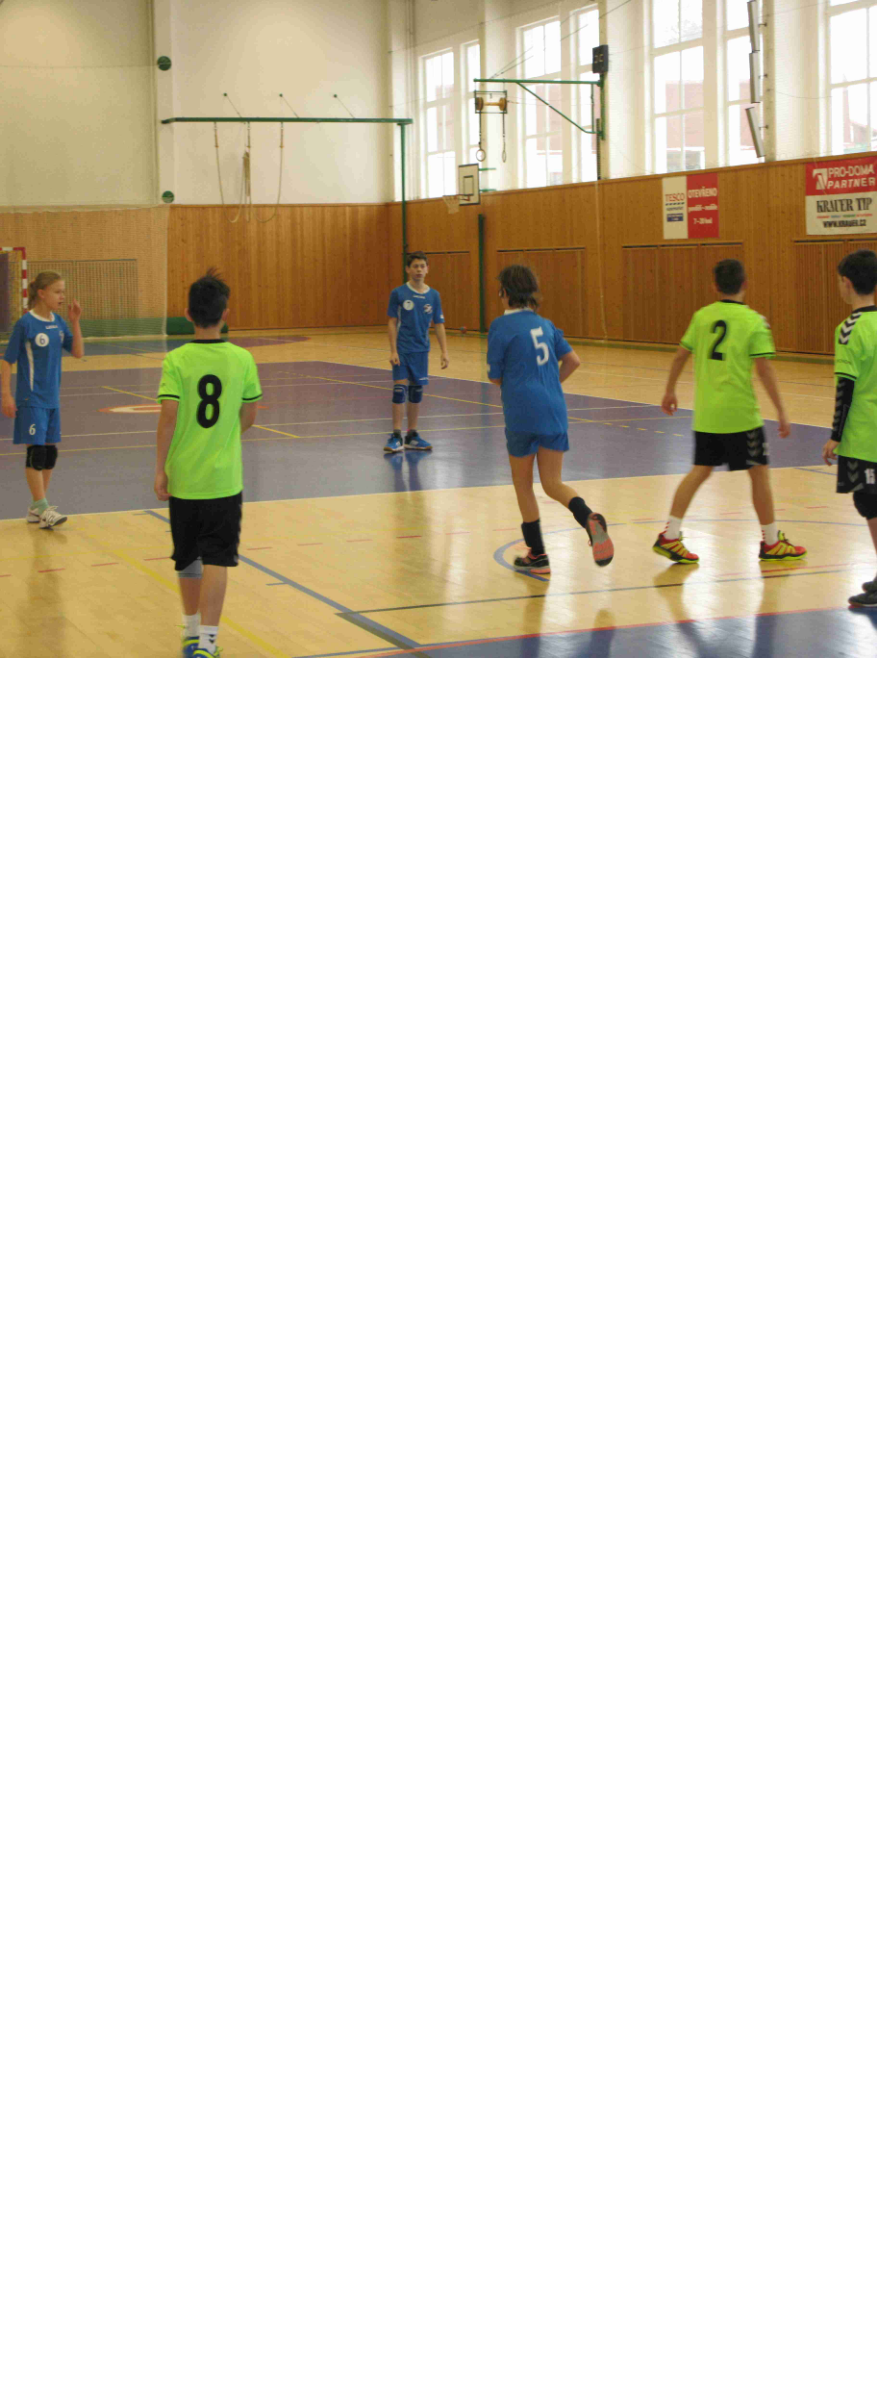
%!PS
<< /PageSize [877 2397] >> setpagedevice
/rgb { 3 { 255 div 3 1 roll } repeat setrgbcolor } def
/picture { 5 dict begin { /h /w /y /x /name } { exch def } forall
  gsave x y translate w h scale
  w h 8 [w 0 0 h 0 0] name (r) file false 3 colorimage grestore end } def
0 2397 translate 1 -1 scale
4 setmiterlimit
255 255 255 rgb
0 0 877 2397 rectfill
(img_01.rgb) 0 0 877 658 picture
showpage
